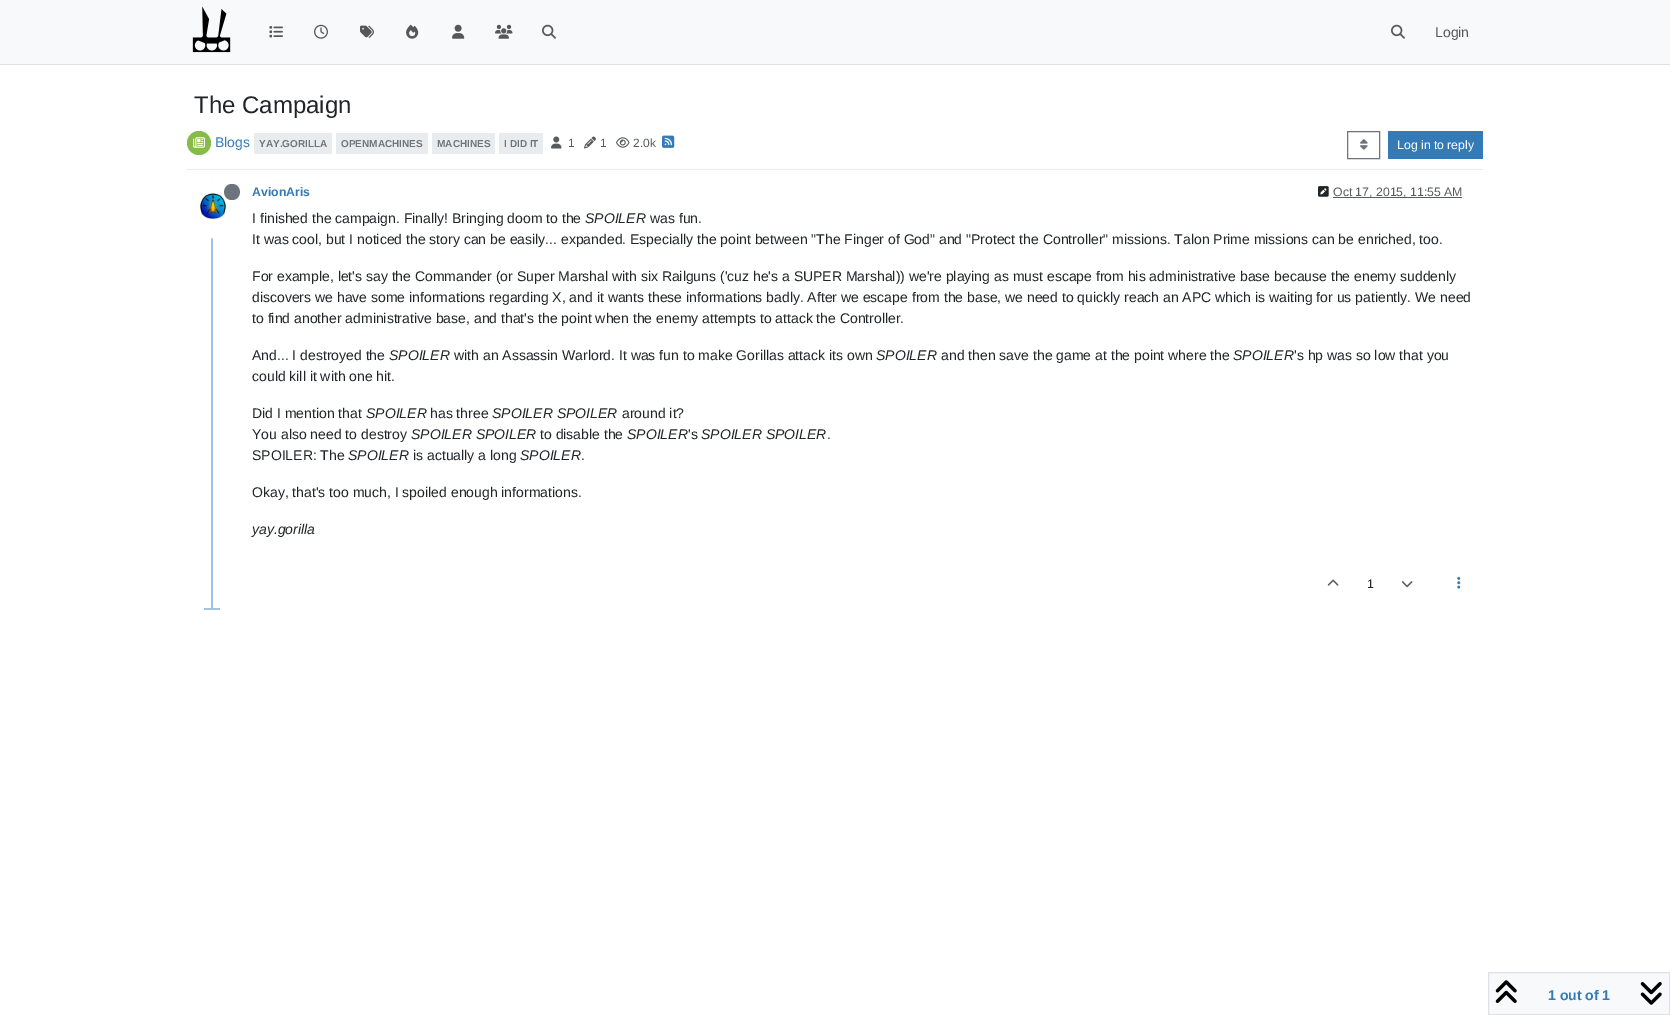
%!PS
<< /PageSize [1670 1015] >> setpagedevice
/rgb { 3 { 255 div 3 1 roll } repeat setrgbcolor } def
/font { [ exch dup neg 0 0 3 -1 roll 0 0 ] selectfont } def
/text { moveto show } def
/circle { newpath 0 360 arc closepath } def
/picture { 5 dict begin { /h /w /y /x /name } { exch def } forall
  gsave x y translate w h scale
  w h 8 [w 0 0 h 0 0] name (r) file false 3 colorimage grestore end } def
0 1015 translate 1 -1 scale
4 setmiterlimit
255 255 255 rgb
0 0 1670 1015 rectfill
248 249 250 rgb
0 0 1670 64 rectfill
222 226 230 rgb
0 64 1670 1 rectfill
(img_01.rgb) 192 6 39 47 picture
(img_02.rgb) 269 26 14 12 picture
(img_03.rgb) 314 24 14 15 picture
(img_04.rgb) 360 25 14 13 picture
(img_05.rgb) 406 24 13 15 picture
(img_06.rgb) 452 24 13 15 picture
(img_07.rgb) 495 24 18 15 picture
(img_08.rgb) 542 24 14 15 picture
(img_08.rgb) 1391 24 14 15 picture
233 236 239 rgb
187 169 1296 1 rectfill
134 186 75 rgb
199 143 12 circle fill
(img_09.rgb) 193 137 12 11 picture
233 236 239 rgb
254 133 78 21 rectfill
336 133 92 21 rectfill
432 133 63 21 rectfill
499 133 44 21 rectfill
(img_10.rgb) 551 136 11 13 picture
(img_11.rgb) 584 136 12 13 picture
(img_12.rgb) 616 137 14 11 picture
(img_13.rgb) 662 135 13 13 picture
108 117 125 rgb
1347.5 131.5 32 27 rectstroke
(img_14.rgb) 1360 139 8 11 picture
51 122 183 rgb
1388 131 95 28 rectfill
160 196 228 rgb
211 180 2 430 rectfill
255 255 255 rgb
8 setlinewidth
213 206 28 circle stroke
(img_15.rgb) 199 182 28 48 picture
108 117 125 rgb
232 200 moveto 10.5 0 10.5 -16 0 -16 rcurveto -10.5 0 -10.5 16 0 16 rcurveto closepath fill
(img_16.rgb) 1318 186 11 11 picture
89 92 95 rgb
1333 197 129 1 rectfill
(img_17.rgb) 1327 579 12 7 picture
(img_18.rgb) 1401 581 12 7 picture
(img_19.rgb) 1457 576 4 13 picture
160 196 228 rgb
204 608 16 2 rectfill
248 249 250 rgb
1488.5 972.5 moveto 181 0 rlineto 0 42 rlineto -181 0 rlineto closepath gsave fill grestore
222 226 230 rgb
1 setlinewidth
stroke
(img_20.rgb) 1495 980 22 23 picture
(img_21.rgb) 1640 982 22 23 picture
/LiberationSans-Regular 14 font
87 87 88 rgb
(Login) 1435 37 text
/LiberationSans-Regular 24 font
33 37 41 rgb
(The Campaign) 194 113 text
/LiberationSans-Regular 14 font
51 122 183 rgb
(Blogs) 215 147 text
/LiberationSans-Bold 10 font
108 117 125 rgb
(YAY.GORILLA) 259 147 text
(OPENMACHINES) 341 147 text
(MACHINES) 437 147 text
(I DID IT) 504 147 text
/LiberationSans-Regular 12 font
88 91 94 rgb
(1) 568 147 text
(1) 600 147 text
(2.0k) 633 147 text
/LiberationSans-Regular 12.25 font
255 255 255 rgb
(Log in to reply) 1397 149 text
/LiberationSans-Bold 12.25 font
51 122 183 rgb
(AvionAris) 252 196 text
/LiberationSans-Regular 12.25 font
88 91 94 rgb
(Oct 17, 2015, 11:55 AM) 1333 196 text
/LiberationSans-Regular 14 font
33 37 41 rgb
(I finished the campaign. Finally! Bringing doom to the) 252 223 text
/LiberationSans-Italic 14 font
(SPOILER) 585 223 text
/LiberationSans-Regular 14 font
(was fun.) 650 223 text
(It was cool, but I noticed the story can be easily... expanded. Especially the point between "The Finger of God" and "Protect the Controller" missions. Talon Prime missions can be enriched, too.) 252 244 text
(For example, let's say the Commander \(or Super Marshal with six Railguns \('cuz he's a SUPER Marshal\)\) we're playing as must escape from his administrative base because the enemy suddenly) 252 281 text
(discovers we have some informations regarding X, and it wants these informations badly. After we escape from the base, we need to quickly reach an APC which is waiting for us patiently. We need) 252 302 text
(to find another administrative base, and that's the point when the enemy attempts to attack the Controller.) 252 323 text
(And... I destroyed the) 252 360 text
/LiberationSans-Italic 14 font
(SPOILER) 389 360 text
/LiberationSans-Regular 14 font
(with an Assassin Warlord. It was fun to make Gorillas attack its own) 454 360 text
/LiberationSans-Italic 14 font
(SPOILER) 876 360 text
/LiberationSans-Regular 14 font
(and then save the game at the point where the) 941 360 text
/LiberationSans-Italic 14 font
(SPOILER) 1233 360 text
/LiberationSans-Regular 14 font
('s hp was so low that you) 1294 360 text
(could kill it with one hit.) 252 381 text
(Did I mention that) 252 418 text
/LiberationSans-Italic 14 font
(SPOILER) 366 418 text
/LiberationSans-Regular 14 font
(has three) 430 418 text
/LiberationSans-Italic 14 font
(SPOILER SPOILER) 492 418 text
/LiberationSans-Regular 14 font
(around it?) 622 418 text
(You also need to destroy) 252 439 text
/LiberationSans-Italic 14 font
(SPOILER SPOILER) 411 439 text
/LiberationSans-Regular 14 font
(to disable the) 540 439 text
/LiberationSans-Italic 14 font
(SPOILER) 627 439 text
/LiberationSans-Regular 14 font
('s) 688 439 text
/LiberationSans-Italic 14 font
(SPOILER SPOILER) 701 439 text
/LiberationSans-Regular 14 font
(.) 827 439 text
(SPOILER: The) 252 460 text
/LiberationSans-Italic 14 font
(SPOILER) 348 460 text
/LiberationSans-Regular 14 font
(is actually a long) 413 460 text
/LiberationSans-Italic 14 font
(SPOILER) 520 460 text
/LiberationSans-Regular 14 font
(.) 581 460 text
(Okay, that's too much, I spoiled enough informations.) 252 497 text
/LiberationSans-Italic 14 font
(yay.gorilla) 252 534 text
/LiberationSans-Regular 12.25 font
(1) 1367 588 text
/LiberationSans-Bold 14 font
51 122 183 rgb
(1 out of 1) 1548 1000 text
showpage
